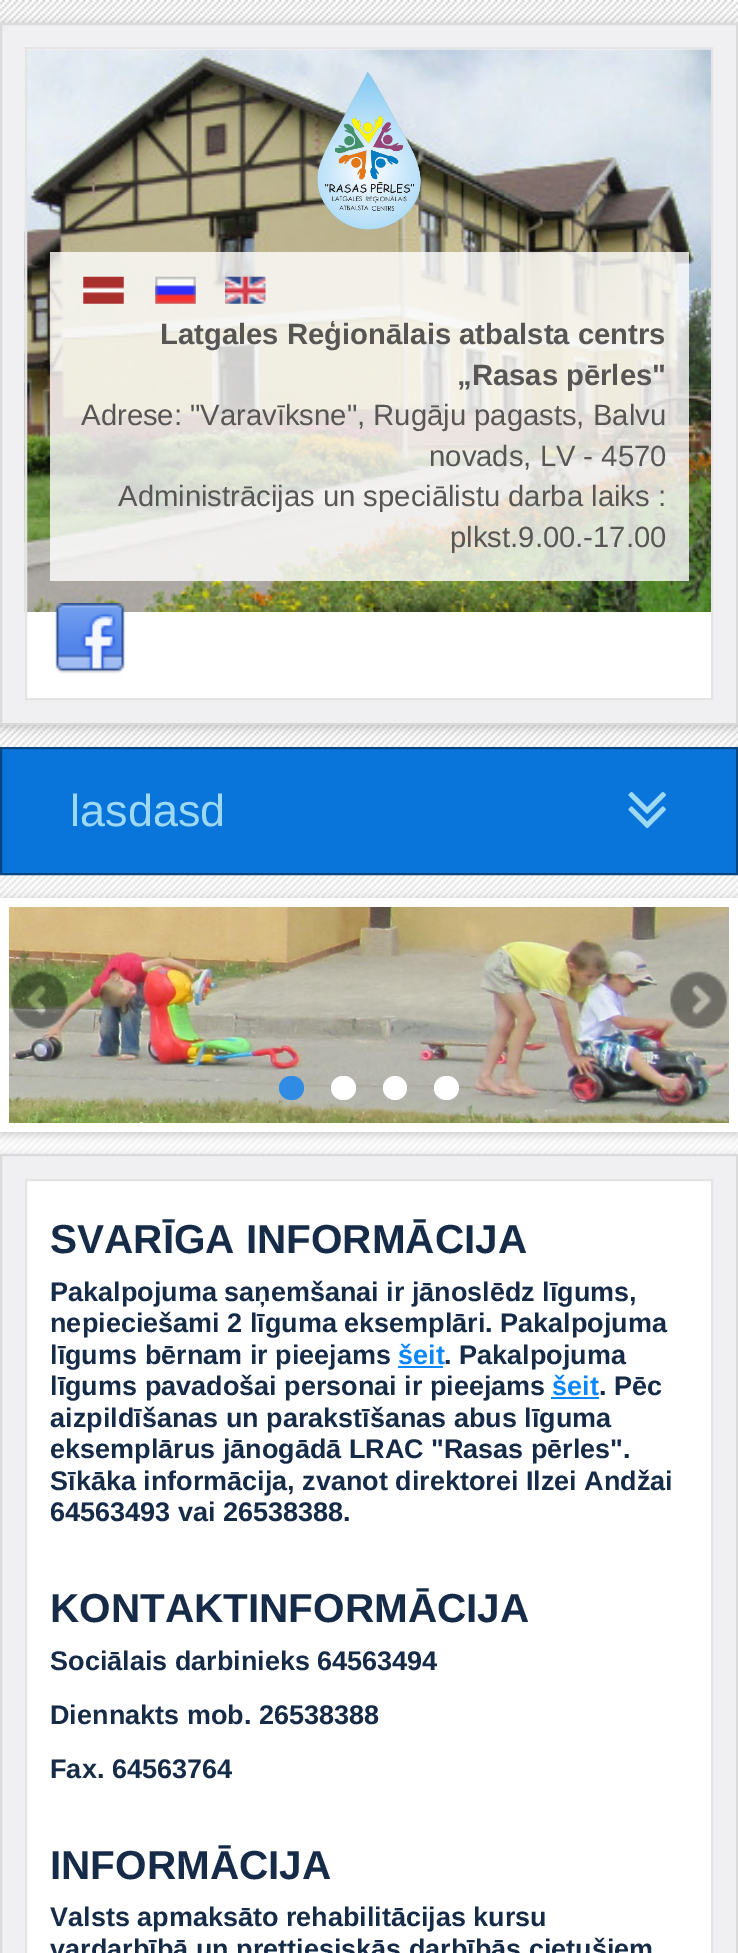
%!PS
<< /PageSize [738 1953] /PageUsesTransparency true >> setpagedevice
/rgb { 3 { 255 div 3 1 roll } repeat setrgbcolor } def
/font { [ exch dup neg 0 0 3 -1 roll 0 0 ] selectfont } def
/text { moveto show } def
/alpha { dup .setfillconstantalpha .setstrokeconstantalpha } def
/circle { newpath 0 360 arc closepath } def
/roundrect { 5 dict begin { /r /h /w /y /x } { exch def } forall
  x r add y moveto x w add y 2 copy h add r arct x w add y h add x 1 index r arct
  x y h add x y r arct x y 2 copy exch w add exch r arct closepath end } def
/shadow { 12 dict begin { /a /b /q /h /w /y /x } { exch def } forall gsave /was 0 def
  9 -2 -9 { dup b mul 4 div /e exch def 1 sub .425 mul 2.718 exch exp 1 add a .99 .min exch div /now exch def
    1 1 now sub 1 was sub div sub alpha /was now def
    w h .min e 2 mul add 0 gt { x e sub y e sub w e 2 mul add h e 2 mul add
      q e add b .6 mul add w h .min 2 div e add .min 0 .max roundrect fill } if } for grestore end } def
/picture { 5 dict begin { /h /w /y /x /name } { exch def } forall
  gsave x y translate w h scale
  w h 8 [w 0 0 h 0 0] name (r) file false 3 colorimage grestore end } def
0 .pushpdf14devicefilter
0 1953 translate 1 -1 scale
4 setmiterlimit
255 255 255 rgb
0 0 738 1953 rectfill
(img_01.rgb) 0 0 738 1154 picture
0 0 0 rgb
0 25 738 702 0 4.5 0.2 shadow
240 240 242 rgb
1 24 moveto 736 0 rlineto 0 700 rlineto -736 0 rlineto closepath gsave fill grestore
218 218 218 rgb
2 setlinewidth
stroke
255 255 255 rgb
27 49 684 649 rectfill
(img_02.rgb) 24 49 687 563 picture
228 228 228 rgb
26 48 686 651 rectstroke
(img_03.rgb) 317 72 104 158 picture
0.8 alpha
255 255 255 rgb
50 252 639 329 rectfill
1 alpha
(img_04.rgb) 83 276 41 28 picture
(img_05.rgb) 155 276 41 28 picture
(img_06.rgb) 225 276 41 28 picture
(img_07.rgb) 55 603 70 71 picture
9 117 218 rgb
1 748 moveto 736 0 rlineto 0 126 rlineto -736 0 rlineto closepath gsave fill grestore
9 70 128 rgb
stroke
(img_08.rgb) 628 791 38 38 picture
0 0 0 rgb
0 900 738 234 0 4.5 0.2 shadow
255 255 255 rgb
0 898 738 234 rectfill
(img_09.rgb) 9 907 720 216 picture
(img_10.rgb) 10 971 58 60 picture
(img_11.rgb) 670 971 58 60 picture
47 139 228 rgb
279 1076 25 24 12 roundrect fill
255 255 255 rgb
331 1076 25 24 12 roundrect fill
395 1088 12 circle fill
434 1076 25 24 12 roundrect fill
0 0 0 rgb
0 1157 738 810 0 4.5 0.2 shadow
240 240 242 rgb
1 1155 moveto 736 0 rlineto 0 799 rlineto -736 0 rlineto closepath gsave fill grestore
218 218 218 rgb
stroke
255 255 255 rgb
26 1180 moveto 686 0 rlineto 0 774 rlineto -686 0 rlineto closepath gsave fill grestore
228 228 228 rgb
stroke
11 135 251 rgb
398 1366 45 2 rectfill
551 1397 48 2 rectfill
/LiberationSans-Bold 29.25 font
87 86 85 rgb
(Latgales Reģionālais atbalsta centrs) 160 344 text
(„Rasas pērles") 457 385 text
/LiberationSans-Regular 29.25 font
(Adrese: "Varavīksne", Rugāju pagasts, Balvu) 81 425 text
(novads, LV - 4570) 429 466 text
(Administrācijas un speciālistu darba laiks :) 118 506 text
(plkst.9.00.-17.00) 450 547 text
/LiberationSans-Regular 45 font
158 217 244 rgb
(lasdasd) 70 826 text
/LiberationSans-Bold 40.5 font
22 43 72 rgb
(SVARĪGA INFORMĀCIJA) 50 1253 text
/LiberationSans-Bold 27 font
(Pakalpojuma saņemšanai ir jānoslēdz līgums,) 50 1301 text
(nepieciešami 2 līguma eksemplāri. Pakalpojuma) 50 1332 text
(līgums bērnam ir pieejams) 50 1364 text
11 135 251 rgb
(šeit) 398 1364 text
22 43 72 rgb
(. Pakalpojuma) 444 1364 text
(līgums pavadošai personai ir pieejams) 50 1395 text
11 135 251 rgb
(šeit) 552 1395 text
22 43 72 rgb
(. Pēc) 599 1395 text
(aizpildīšanas un parakstīšanas abus līguma) 50 1427 text
(eksemplārus jānogādā LRAC "Rasas pērles".) 50 1458 text
(Sīkāka informācija, zvanot direktorei Ilzei Andžai) 50 1490 text
(64563493 vai 26538388.) 50 1521 text
/LiberationSans-Bold 40.5 font
(KONTAKTINFORMĀCIJA) 50 1622 text
/LiberationSans-Bold 27 font
(Sociālais darbinieks 64563494) 50 1670 text
(Diennakts mob. 26538388) 50 1724 text
(Fax. 64563764) 50 1778 text
/LiberationSans-Bold 40.5 font
(INFORMĀCIJA) 50 1879 text
/LiberationSans-Bold 27 font
(Valsts apmaksāto rehabilitācijas kursu) 50 1926 text
(vardarbībā un prettiesiskās darbībās cietušiem) 50 1958 text
.poppdf14devicefilter showpage
